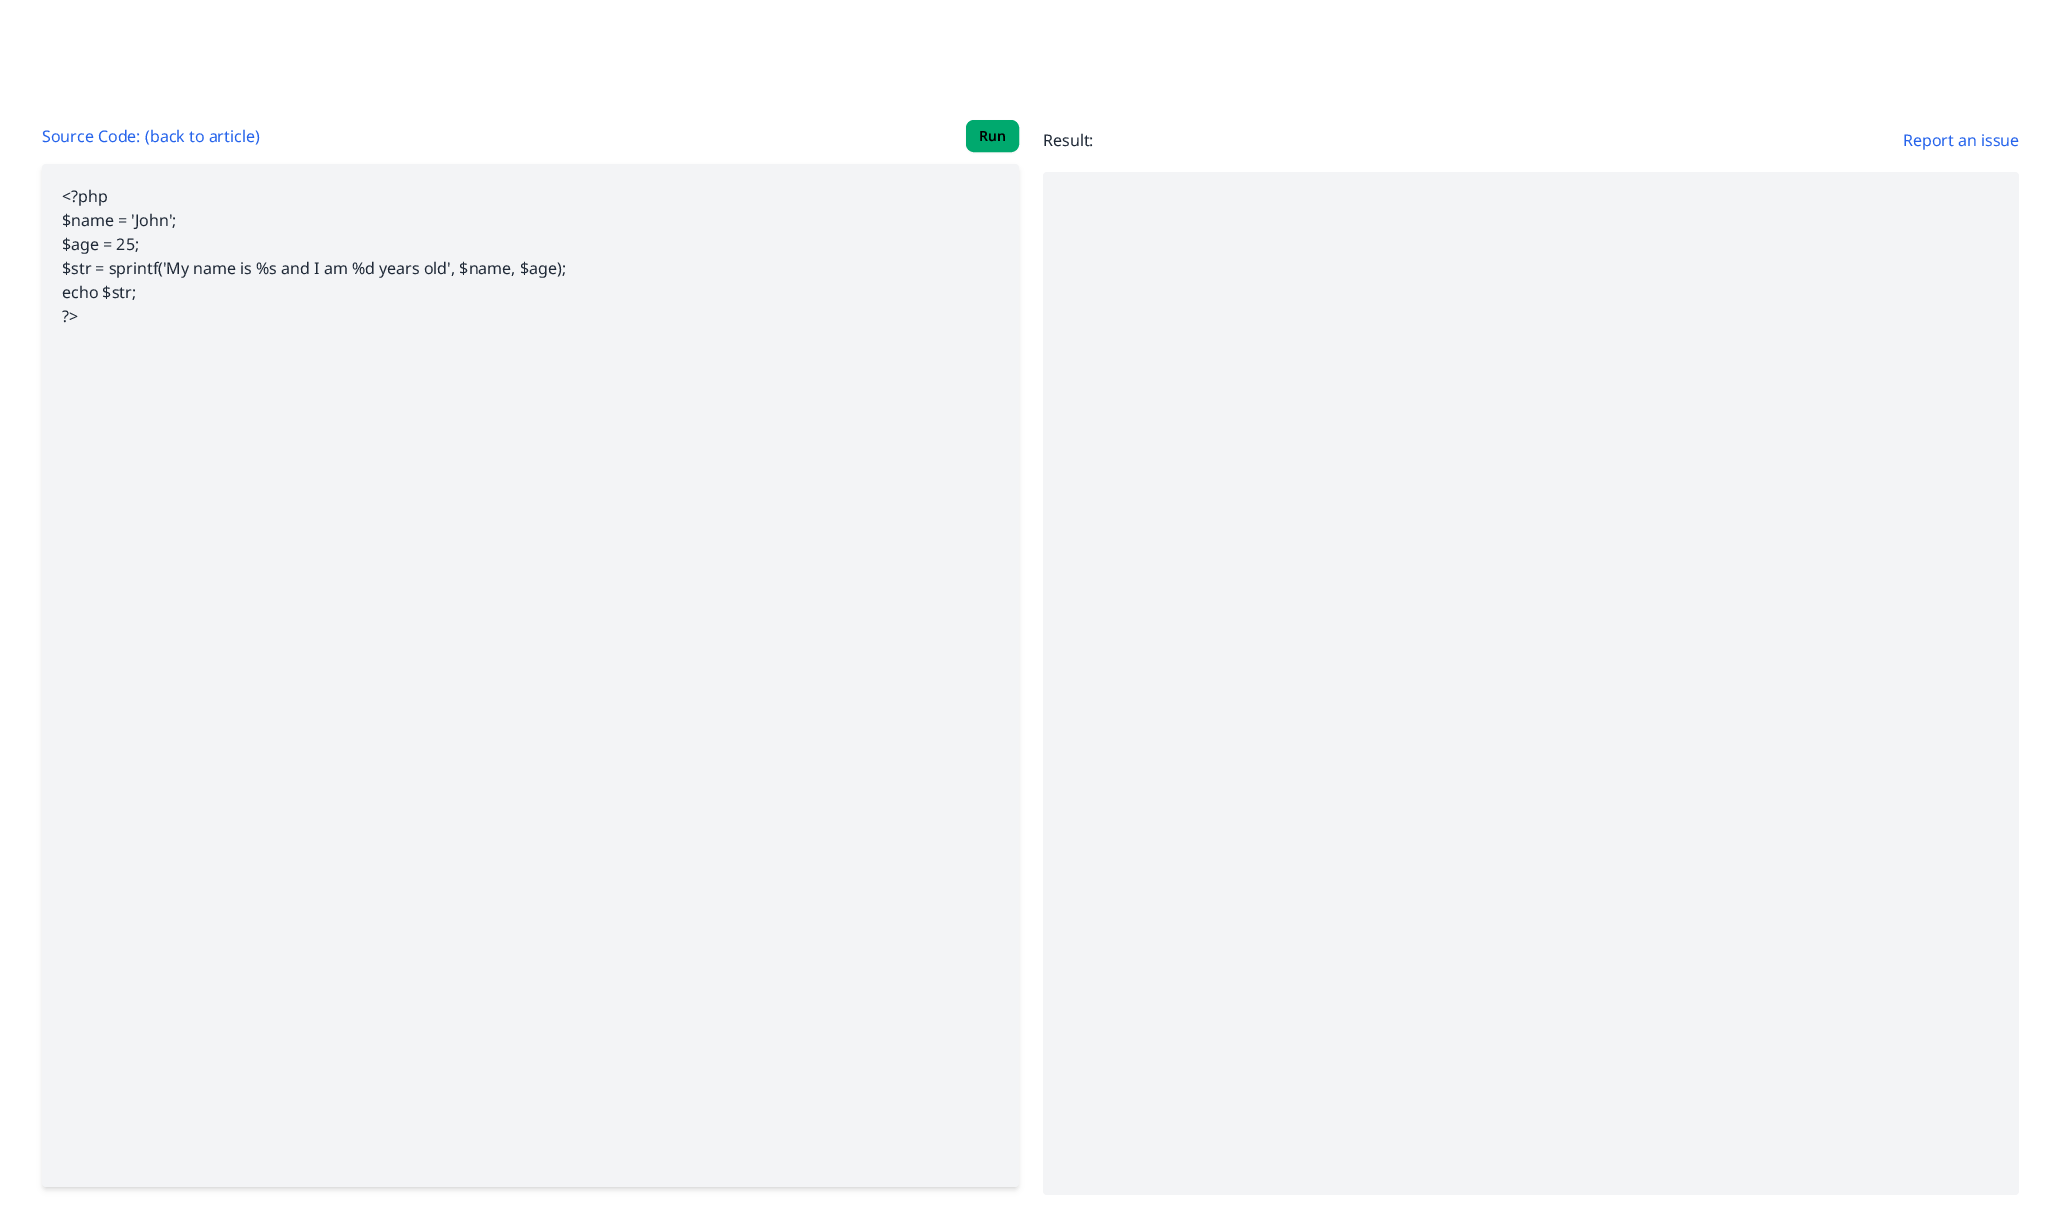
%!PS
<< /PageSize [2061 1213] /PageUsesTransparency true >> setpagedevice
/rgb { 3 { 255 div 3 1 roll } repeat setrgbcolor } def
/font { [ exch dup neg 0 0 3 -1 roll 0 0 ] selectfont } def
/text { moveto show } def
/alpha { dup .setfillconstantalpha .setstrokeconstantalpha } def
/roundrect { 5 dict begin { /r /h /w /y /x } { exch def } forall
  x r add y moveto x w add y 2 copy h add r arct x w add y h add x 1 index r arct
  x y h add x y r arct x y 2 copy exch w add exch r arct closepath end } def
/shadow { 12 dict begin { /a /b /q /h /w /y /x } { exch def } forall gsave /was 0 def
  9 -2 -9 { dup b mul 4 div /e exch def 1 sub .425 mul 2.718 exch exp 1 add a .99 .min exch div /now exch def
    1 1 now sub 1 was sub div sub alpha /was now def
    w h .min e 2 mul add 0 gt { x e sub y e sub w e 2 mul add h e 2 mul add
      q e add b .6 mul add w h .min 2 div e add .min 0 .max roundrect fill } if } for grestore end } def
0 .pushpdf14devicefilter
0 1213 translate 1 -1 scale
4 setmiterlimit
255 255 255 rgb
0 0 2061 1213 rectfill
0 0 0 rgb
966 121 53 32 8 1 0.05 shadow
0 169 110 rgb
966.5 120.5 52 31 7.5 roundrect gsave fill grestore
stroke
0 0 0 rgb
44 168 973 1019 2 2 0.1 shadow
43 169 975 1021 3 3 0.1 shadow
243 244 246 rgb
42 164 977 1023 4 roundrect fill
1043 172 976 1023 4 roundrect fill
/NotoSans-Regular 16 font
37 99 235 rgb
(Source Code: \(back to article\)) 42 142 text
/NotoSans-SemiBold 14 font
0 0 0 rgb
(Run) 979 141 text
/NotoSans-Regular 16 font
31 41 55 rgb
(<?php) 62 202 text
($name = 'John';) 62 226 text
($age = 25;) 62 250 text
($str = sprintf\('My name is %s and I am %d years old', $name, $age\);) 62 274 text
(echo $str;) 62 298 text
(?>) 62 322 text
(Result:) 1043 146 text
37 99 235 rgb
(Report an issue) 1903 146 text
.poppdf14devicefilter showpage
